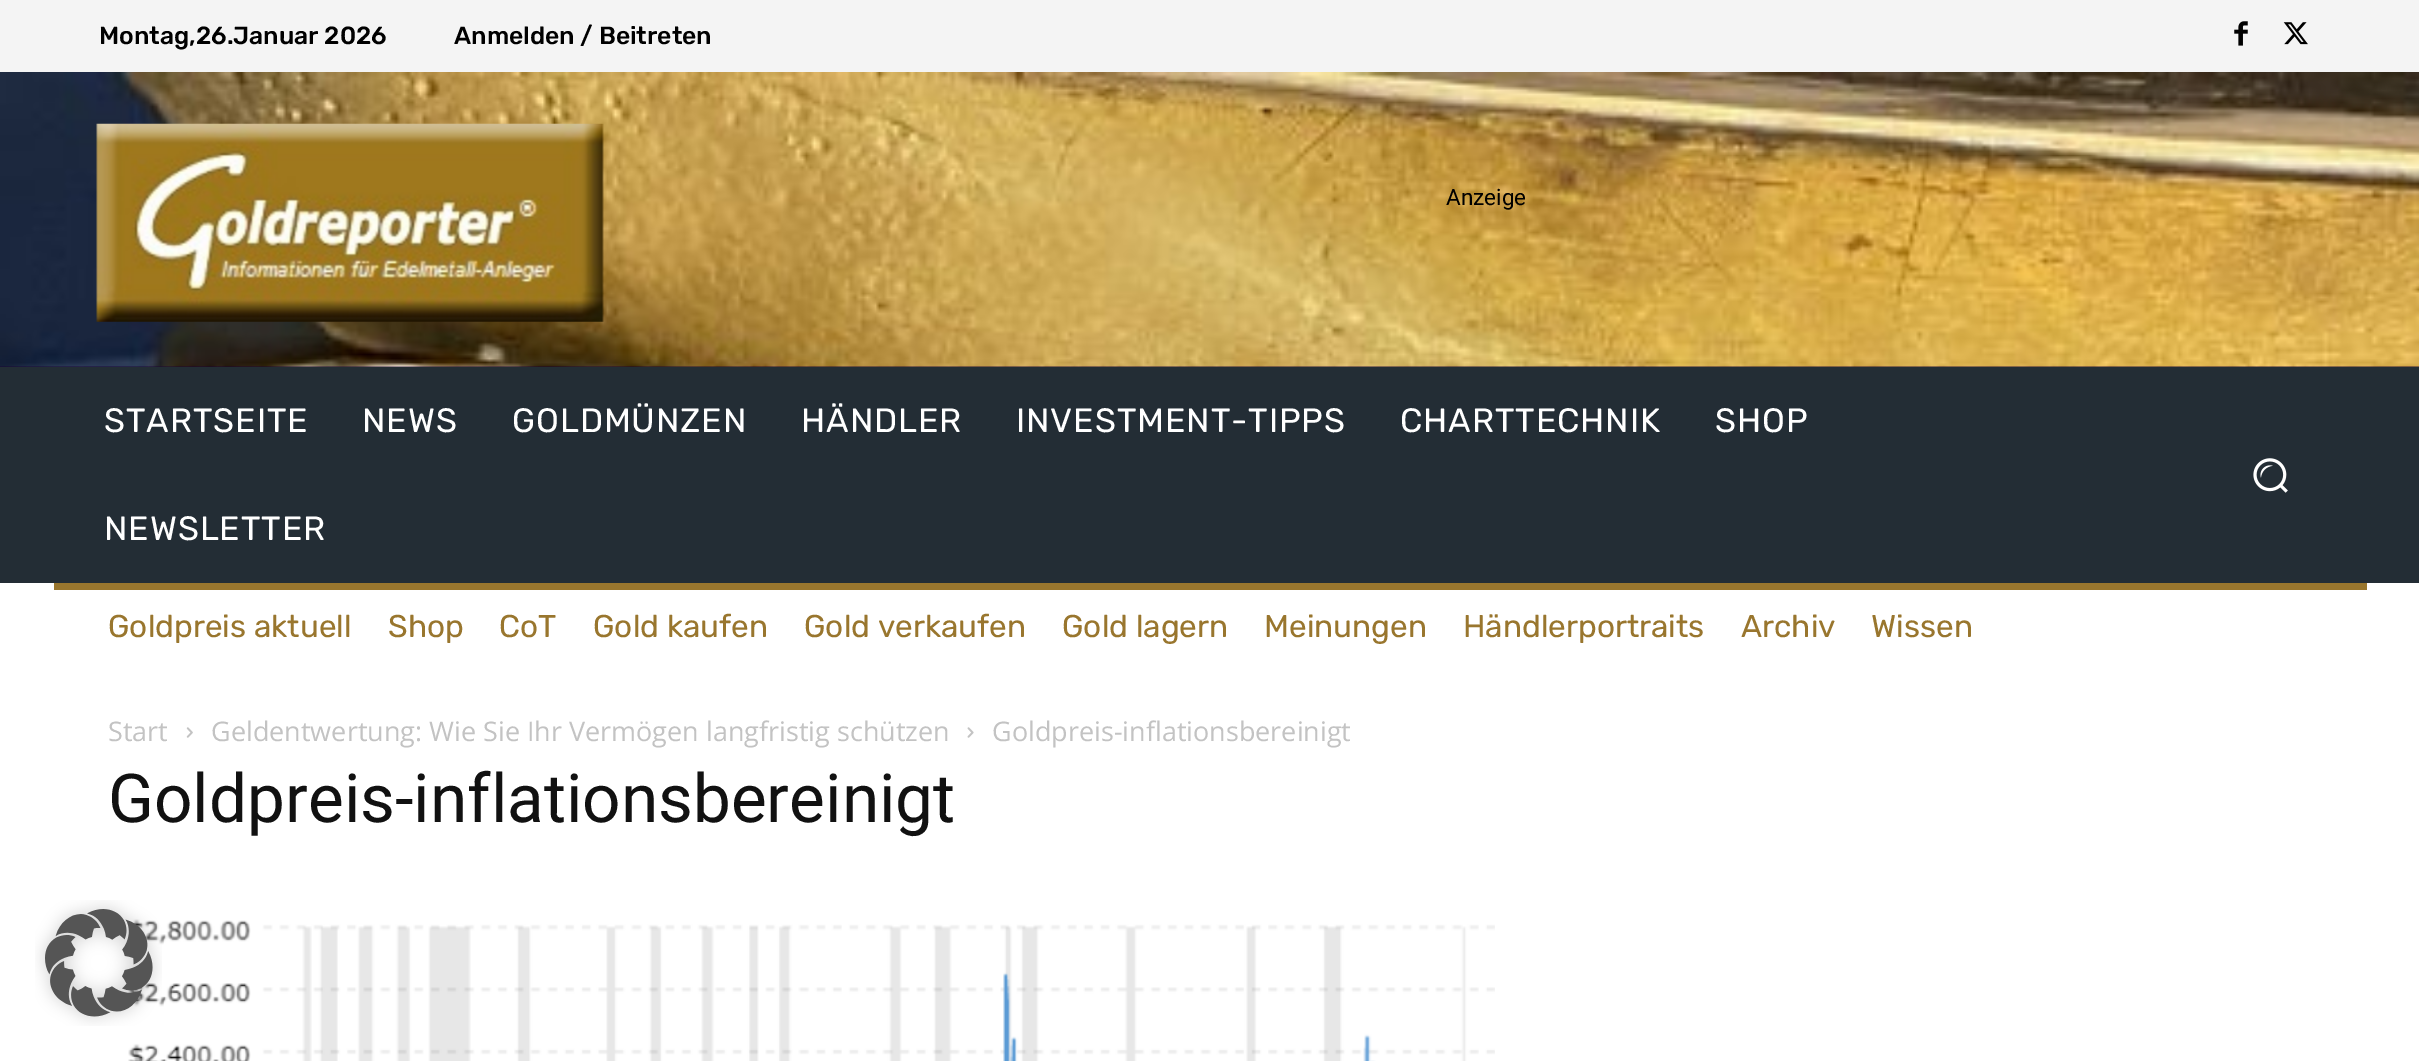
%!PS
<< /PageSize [2419 1061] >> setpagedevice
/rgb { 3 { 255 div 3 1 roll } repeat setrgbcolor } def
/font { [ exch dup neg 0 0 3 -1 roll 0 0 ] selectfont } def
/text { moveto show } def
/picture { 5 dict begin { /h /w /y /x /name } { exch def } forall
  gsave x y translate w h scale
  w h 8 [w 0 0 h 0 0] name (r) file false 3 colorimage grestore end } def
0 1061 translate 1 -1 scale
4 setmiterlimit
255 255 255 rgb
0 0 2419 1061 rectfill
244 244 244 rgb
0 0 2419 72 rectfill
(img_01.rgb) 2234 21 14 25 picture
(img_02.rgb) 2283 22 25 23 picture
28 4 53 rgb
0 366 2419 1 rectfill
(img_03.rgb) 0 72 2419 295 picture
(img_04.rgb) 96 123 508 199 picture
35 45 53 rgb
0 367 2419 216 rectfill
(img_05.rgb) 2253 458 35 35 picture
153 118 46 rgb
54 583 2313 7 rectfill
(img_06.rgb) 186 727 7 11 picture
(img_07.rgb) 967 727 7 11 picture
(img_08.rgb) 128 919 1367 142 picture
(img_09.rgb) 35 900 127 126 picture
/Rubik-Medium 24.75 font
0 0 0 rgb
(Montag,26.Januar 2026) 99 44 text
(Anmelden / Beitreten) 454 44 text
/Roboto-Regular 22.5 font
(Anzeige) 1446 205 text
/Rubik-Regular 33.75 font
255 255 255 rgb
104 432 moveto 0.9 0 (STARTSEITE) ashow
362 432 moveto 0.9 0 (NEWS) ashow
512 432 moveto 0.9 0 (GOLDMÜNZEN) ashow
801 432 moveto 0.9 0 (HÄNDLER) ashow
1016 432 moveto 0.9 0 (INVESTMENT-TIPPS) ashow
1400 432 moveto 0.9 0 (CHARTTECHNIK) ashow
1715 432 moveto 0.9 0 (SHOP) ashow
104 540 moveto 0.9 0 (NEWSLETTER) ashow
/Rubik-Regular 31.5 font
153 118 46 rgb
(Goldpreis aktuell) 108 637 text
(Shop) 388 637 text
(CoT) 499 637 text
(Gold kaufen) 593 637 text
(Gold verkaufen) 804 637 text
(Gold lagern) 1062 637 text
(Meinungen) 1264 637 text
(Händlerportraits) 1463 637 text
(Archiv) 1741 637 text
(Wissen) 1871 637 text
/OpenSans-Regular 27 font
195 195 195 rgb
(Start) 108 741 text
(Geldentwertung: Wie Sie Ihr Vermögen langfristig schützen) 211 741 text
(Goldpreis-inflationsbereinigt) 992 741 text
/Roboto-Regular 67.5 font
17 17 17 rgb
(Goldpreis-inflationsbereinigt) 108 822 text
showpage
